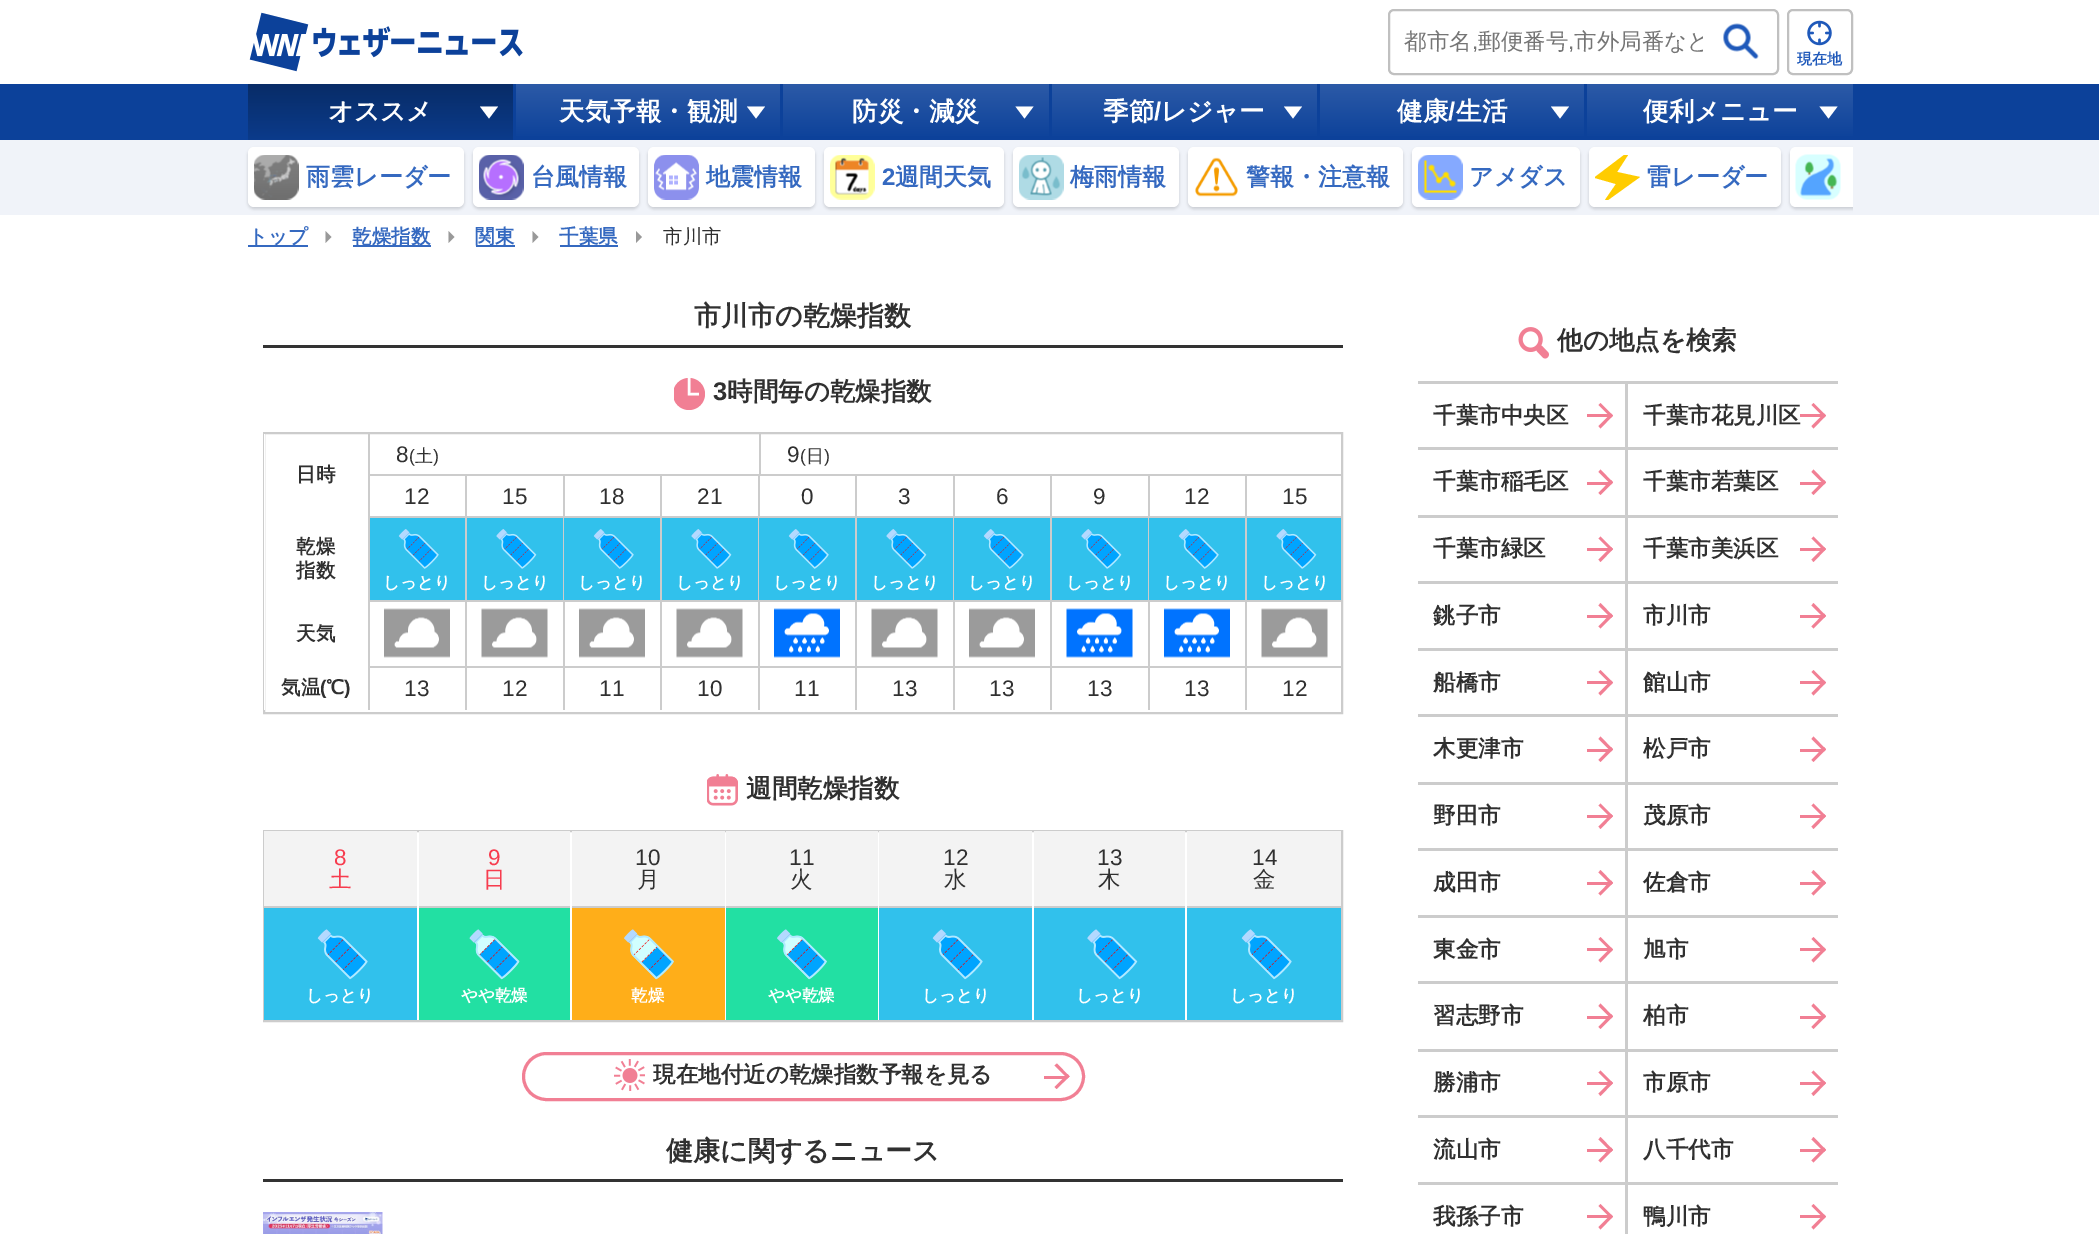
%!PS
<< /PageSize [2099 1234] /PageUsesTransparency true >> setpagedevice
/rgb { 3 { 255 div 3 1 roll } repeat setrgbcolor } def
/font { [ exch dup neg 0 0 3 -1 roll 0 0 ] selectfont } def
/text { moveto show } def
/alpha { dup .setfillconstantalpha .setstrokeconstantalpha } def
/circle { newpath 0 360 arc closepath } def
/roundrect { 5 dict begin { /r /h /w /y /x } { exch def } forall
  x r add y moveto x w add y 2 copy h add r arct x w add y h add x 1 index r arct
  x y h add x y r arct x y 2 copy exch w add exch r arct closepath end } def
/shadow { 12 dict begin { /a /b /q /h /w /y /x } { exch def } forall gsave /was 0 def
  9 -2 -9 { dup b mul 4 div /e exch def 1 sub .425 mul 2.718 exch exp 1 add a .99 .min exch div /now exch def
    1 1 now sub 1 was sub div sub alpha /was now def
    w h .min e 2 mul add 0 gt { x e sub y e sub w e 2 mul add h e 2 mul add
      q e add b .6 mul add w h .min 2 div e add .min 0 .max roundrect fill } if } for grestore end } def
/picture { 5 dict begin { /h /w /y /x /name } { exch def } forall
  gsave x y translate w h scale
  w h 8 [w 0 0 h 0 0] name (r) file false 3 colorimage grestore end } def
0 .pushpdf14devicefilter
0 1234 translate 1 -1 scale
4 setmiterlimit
255 255 255 rgb
0 0 2099 1234 rectfill
(img_01.rgb) 249 12 274 60 picture
192 192 192 rgb
2 setlinewidth
1389 10 389 64 5 roundrect stroke
(img_02.rgb) 1723 23 36 36 picture
1788 10 64 64 5 roundrect stroke
(img_03.rgb) 1807 20 25 26 picture
12 65 154 rgb
0 84 2099 56 rectfill
gsave 248 84 moveto 265 0 rlineto 0 56 rlineto -265 0 rlineto closepath clip newpath
<< /ShadingType 2 /ColorSpace /DeviceRGB /Coords [380 84 380 140] /Extend [true true] /Function << /FunctionType 2 /Domain [0 1] /C0 [0.031 0.173 0.404] /C1 [0.043 0.231 0.545] /N 1 >> >> shfill grestore
255 255 255 rgb
480 106.5 moveto 18 0 rlineto -9 12 rlineto closepath fill
gsave 516 84 moveto 264 0 rlineto 0 52 rlineto -264 0 rlineto closepath clip newpath
<< /ShadingType 2 /ColorSpace /DeviceRGB /Coords [648 84 648 140] /Extend [true true] /Function << /FunctionType 2 /Domain [0 1] /C0 [0.173 0.353 0.655] /C1 [0.047 0.255 0.604] /N 1 >> >> shfill grestore
747 106.5 moveto 18 0 rlineto -9 12 rlineto closepath fill
gsave 783 84 moveto 266 0 rlineto 0 52 rlineto -266 0 rlineto closepath clip newpath
<< /ShadingType 2 /ColorSpace /DeviceRGB /Coords [916 84 916 140] /Extend [true true] /Function << /FunctionType 2 /Domain [0 1] /C0 [0.173 0.353 0.655] /C1 [0.047 0.255 0.604] /N 1 >> >> shfill grestore
1015.5 106.5 moveto 18 0 rlineto -9 12 rlineto closepath fill
gsave 1052 84 moveto 265 0 rlineto 0 52 rlineto -265 0 rlineto closepath clip newpath
<< /ShadingType 2 /ColorSpace /DeviceRGB /Coords [1184 84 1184 140] /Extend [true true] /Function << /FunctionType 2 /Domain [0 1] /C0 [0.173 0.353 0.655] /C1 [0.047 0.255 0.604] /N 1 >> >> shfill grestore
1284 106.5 moveto 18 0 rlineto -9 12 rlineto closepath fill
gsave 1320 84 moveto 264 0 rlineto 0 52 rlineto -264 0 rlineto closepath clip newpath
<< /ShadingType 2 /ColorSpace /DeviceRGB /Coords [1452 84 1452 140] /Extend [true true] /Function << /FunctionType 2 /Domain [0 1] /C0 [0.173 0.353 0.655] /C1 [0.047 0.255 0.604] /N 1 >> >> shfill grestore
1551 106.5 moveto 18 0 rlineto -9 12 rlineto closepath fill
gsave 1587 84 moveto 266 0 rlineto 0 52 rlineto -266 0 rlineto closepath clip newpath
<< /ShadingType 2 /ColorSpace /DeviceRGB /Coords [1720 84 1720 140] /Extend [true true] /Function << /FunctionType 2 /Domain [0 1] /C0 [0.173 0.353 0.655] /C1 [0.047 0.255 0.604] /N 1 >> >> shfill grestore
1819.5 106.5 moveto 18 0 rlineto -9 12 rlineto closepath fill
240 243 249 rgb
0 140 2099 75 rectfill
gsave
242 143 moveto 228 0 rlineto 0 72 rlineto -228 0 rlineto closepath 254 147 moveto 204 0 rlineto 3.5 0 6 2.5 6 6 rcurveto 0 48 rlineto 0 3.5 -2.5 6 -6 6 rcurveto -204 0 rlineto -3.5 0 -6 -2.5 -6 -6 rcurveto 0 -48 rlineto 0 -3.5 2.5 -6 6 -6 rcurveto closepath eoclip newpath
0 0 0 rgb
248 149 216 60 6 1.5 0.15 shadow
grestore
255 255 255 rgb
248 147 216 60 6 roundrect fill
(img_04.rgb) 254 155 45 45 picture
0 0 0 rgb
473 149 166 60 6 1.5 0.15 shadow
255 255 255 rgb
473 147 166 60 6 roundrect fill
(img_05.rgb) 479 155 45 45 picture
0 0 0 rgb
648 149 167 60 6 1.5 0.15 shadow
255 255 255 rgb
648 147 167 60 6 roundrect fill
(img_06.rgb) 654 155 45 45 picture
0 0 0 rgb
824 149 180 60 6 1.5 0.15 shadow
255 255 255 rgb
824 147 180 60 6 roundrect fill
(img_07.rgb) 830 155 45 45 picture
0 0 0 rgb
1013 149 166 60 6 1.5 0.15 shadow
255 255 255 rgb
1013 147 166 60 6 roundrect fill
(img_08.rgb) 1019 155 45 45 picture
0 0 0 rgb
1188 149 215 60 6 1.5 0.15 shadow
255 255 255 rgb
1188 147 215 60 6 roundrect fill
(img_09.rgb) 1195 157 43 40 picture
0 0 0 rgb
1412 149 168 60 6 1.5 0.15 shadow
255 255 255 rgb
1412 147 168 60 6 roundrect fill
(img_10.rgb) 1418 155 45 45 picture
0 0 0 rgb
1589 149 192 60 6 1.5 0.15 shadow
255 255 255 rgb
1589 147 192 60 6 roundrect fill
255 204 0 rgb
1628 155 moveto -4 0 rlineto -29 22 rlineto 0 1 rlineto 21 6 rlineto -11 16 rlineto 3 0 rlineto 32 -23 rlineto -23 -5 rlineto closepath fill
gsave
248 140 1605 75 rectclip
0 0 0 rgb
1790 149 214 60 6 1.5 0.15 shadow
grestore
255 255 255 rgb
1796 147 moveto 57 0 rlineto 0 60 rlineto -57 0 rlineto -3.5 0 -6 -2.5 -6 -6 rcurveto 0 -48 rlineto 0 -3.5 2.5 -6 6 -6 rcurveto closepath fill
(img_11.rgb) 1795 154 46 46 picture
53 105 192 rgb
248 245 60 2 rectfill
153 153 153 rgb
325.5 243 moveto 0 -12 rlineto 6 6 rlineto closepath fill
53 105 192 rgb
353 245 78 2 rectfill
153 153 153 rgb
448.5 243 moveto 0 -12 rlineto 6 6 rlineto closepath fill
53 105 192 rgb
476 245 39 2 rectfill
153 153 153 rgb
532.5 243 moveto 0 -12 rlineto 6 6 rlineto closepath fill
53 105 192 rgb
560 245 58 2 rectfill
153 153 153 rgb
636 243 moveto 0 -12 rlineto 6 6 rlineto closepath fill
51 51 51 rgb
263 345 1080 3 rectfill
gsave
674 378 31 32 rectclip
241 127 148 rgb
689 394 16 circle fill
grestore
255 255 255 rgb
2.6 setlinewidth
689 378 moveto 0 16 rlineto 10 0 rlineto stroke
204 204 204 rgb
2 setlinewidth
264 433 1078 280 rectstroke
255 255 255 rgb
264 434 1 276 rectfill
204 204 204 rgb
369 474 972 2 rectfill
465 476 2 234 rectfill
369 516 98 2 rectfill
369 600 98 2 rectfill
369 666 98 2 rectfill
368 434 2 276 rectfill
49 193 236 rgb
370 518 95 82 rectfill
(img_12.rgb) 398 529 41 40 picture
(img_13.rgb) 384 608 66 50 picture
204 204 204 rgb
563 476 2 42 rectfill
467 516 97 2 rectfill
49 193 236 rgb
467 518 96 82 rectfill
204 204 204 rgb
563 518 1 84 rectfill
467 600 97 2 rectfill
(img_14.rgb) 496 529 41 40 picture
563 602 2 108 rectfill
467 666 97 2 rectfill
(img_15.rgb) 481 608 67 50 picture
660 476 2 234 rectfill
564 516 98 2 rectfill
49 193 236 rgb
564 518 96 82 rectfill
204 204 204 rgb
564 600 98 2 rectfill
(img_12.rgb) 593 529 41 40 picture
564 666 98 2 rectfill
(img_13.rgb) 579 608 66 50 picture
758 476 2 42 rectfill
662 516 97 2 rectfill
49 193 236 rgb
662 518 96 82 rectfill
204 204 204 rgb
758 518 1 84 rectfill
662 600 97 2 rectfill
(img_14.rgb) 691 529 41 40 picture
758 602 2 108 rectfill
662 666 97 2 rectfill
(img_15.rgb) 676 608 67 50 picture
759 434 2 42 rectfill
855 476 2 234 rectfill
759 516 98 2 rectfill
49 193 236 rgb
759 518 96 82 rectfill
204 204 204 rgb
759 600 98 2 rectfill
(img_12.rgb) 788 529 41 40 picture
759 666 98 2 rectfill
(img_16.rgb) 774 608 66 50 picture
953 476 2 42 rectfill
857 516 97 2 rectfill
49 193 236 rgb
857 518 96 82 rectfill
204 204 204 rgb
953 518 1 84 rectfill
857 600 97 2 rectfill
(img_14.rgb) 886 529 41 40 picture
953 602 2 108 rectfill
857 666 97 2 rectfill
(img_15.rgb) 871 608 67 50 picture
1050 476 2 234 rectfill
954 516 98 2 rectfill
49 193 236 rgb
954 518 96 82 rectfill
204 204 204 rgb
954 600 98 2 rectfill
(img_12.rgb) 983 529 41 40 picture
954 666 98 2 rectfill
(img_13.rgb) 969 608 66 50 picture
1148 476 2 42 rectfill
1052 516 97 2 rectfill
49 193 236 rgb
1052 518 96 82 rectfill
204 204 204 rgb
1148 518 1 84 rectfill
1052 600 97 2 rectfill
(img_14.rgb) 1081 529 41 40 picture
1148 602 2 108 rectfill
1052 666 97 2 rectfill
(img_17.rgb) 1066 608 67 50 picture
1245 476 2 234 rectfill
1149 516 192 2 rectfill
49 193 236 rgb
1149 518 96 82 rectfill
204 204 204 rgb
1149 600 192 2 rectfill
(img_12.rgb) 1178 529 41 40 picture
1149 666 192 2 rectfill
(img_16.rgb) 1164 608 66 50 picture
49 193 236 rgb
1247 518 94 82 rectfill
(img_14.rgb) 1276 529 41 40 picture
(img_15.rgb) 1261 608 67 50 picture
(img_18.rgb) 707 774 31 32 picture
204 204 204 rgb
264 831 1078 190 rectstroke
243 243 243 rgb
264 831 153 75 rectfill
204 204 204 rgb
264 906 153 2 rectfill
49 193 236 rgb
264 908 153 112 rectfill
(img_19.rgb) 317 929 51 51 picture
243 243 243 rgb
419 831 151 75 rectfill
204 204 204 rgb
419 906 151 2 rectfill
34 224 163 rgb
419 908 151 112 rectfill
(img_20.rgb) 469 929 51 51 picture
243 243 243 rgb
572 831 153 75 rectfill
204 204 204 rgb
572 906 153 2 rectfill
255 174 25 rgb
572 908 153 112 rectfill
(img_21.rgb) 624 929 50 51 picture
243 243 243 rgb
726 831 152 75 rectfill
204 204 204 rgb
726 906 152 2 rectfill
34 224 163 rgb
726 908 152 112 rectfill
(img_22.rgb) 777 929 50 51 picture
243 243 243 rgb
879 831 153 75 rectfill
204 204 204 rgb
879 906 153 2 rectfill
49 193 236 rgb
879 908 153 112 rectfill
(img_19.rgb) 932 929 51 51 picture
243 243 243 rgb
1034 831 151 75 rectfill
204 204 204 rgb
1034 906 151 2 rectfill
49 193 236 rgb
1034 908 151 112 rectfill
(img_23.rgb) 1087 929 51 51 picture
243 243 243 rgb
1187 831 154 75 rectfill
204 204 204 rgb
1187 906 154 2 rectfill
49 193 236 rgb
1187 908 154 112 rectfill
(img_19.rgb) 1241 929 51 51 picture
241 127 148 rgb
3 setlinewidth
523.5 1053.5 560 46 23 roundrect stroke
(img_24.rgb) 614 1059 31 32 picture
1044 1076 23 3 rectfill
1054.5 1065.5 moveto 2.5 -2 rlineto 12.5 13 rlineto -2 2 rlineto closepath fill
1054.5 1087 moveto 13 -13 rlineto 2 2.5 rlineto -13 12.5 rlineto closepath fill
51 51 51 rgb
263 1179 1080 3 rectfill
(img_25.rgb) 263 1212 120 22 picture
(img_26.rgb) 1518 327 31 32 picture
204 204 204 rgb
1418 381 420 3 rectfill
1625 384 3 850 rectfill
1418 447 420 3 rectfill
241 127 148 rgb
1587 414 23 3 rectfill
1598.5 405 moveto 2 -2 rlineto 12.5 12.5 rlineto -2 2 rlineto closepath fill
1598.5 426 moveto 12.5 -12.5 rlineto 2 2 rlineto -12.5 13 rlineto closepath fill
1800 414 23 3 rectfill
1811.5 405 moveto 2 -2 rlineto 12.5 12.5 rlineto -2 2 rlineto closepath fill
1811.5 426 moveto 12.5 -12.5 rlineto 2 2 rlineto -12.5 13 rlineto closepath fill
204 204 204 rgb
1418 515 420 3 rectfill
241 127 148 rgb
1587 482 23 3 rectfill
1598.5 472 moveto 2 -2.5 rlineto 12.5 13 rlineto -2 2 rlineto closepath fill
1598.5 493 moveto 12.5 -13 rlineto 2 2.5 rlineto -12.5 12.5 rlineto closepath fill
1800 482 23 3 rectfill
1811.5 472 moveto 2 -2.5 rlineto 12.5 13 rlineto -2 2 rlineto closepath fill
1811.5 493 moveto 12.5 -13 rlineto 2 2.5 rlineto -12.5 12.5 rlineto closepath fill
204 204 204 rgb
1418 581 420 3 rectfill
241 127 148 rgb
1587 548 23 3 rectfill
1598.5 538.5 moveto 2 -2 rlineto 12.5 12.5 rlineto -2 2 rlineto closepath fill
1598.5 559.5 moveto 12.5 -12.5 rlineto 2 2 rlineto -12.5 13 rlineto closepath fill
1800 548 23 3 rectfill
1811.5 538.5 moveto 2 -2 rlineto 12.5 12.5 rlineto -2 2 rlineto closepath fill
1811.5 559.5 moveto 12.5 -12.5 rlineto 2 2 rlineto -12.5 13 rlineto closepath fill
204 204 204 rgb
1418 648 420 3 rectfill
241 127 148 rgb
1587 615 23 3 rectfill
1598.5 605.5 moveto 2 -2.5 rlineto 12.5 13 rlineto -2 2 rlineto closepath fill
1598.5 626.5 moveto 12.5 -13 rlineto 2 2.5 rlineto -12.5 12.5 rlineto closepath fill
1800 615 23 3 rectfill
1811.5 605.5 moveto 2 -2.5 rlineto 12.5 13 rlineto -2 2 rlineto closepath fill
1811.5 626.5 moveto 12.5 -13 rlineto 2 2.5 rlineto -12.5 12.5 rlineto closepath fill
204 204 204 rgb
1418 714 420 3 rectfill
241 127 148 rgb
1587 681 23 3 rectfill
1598.5 672 moveto 2 -2 rlineto 12.5 12.5 rlineto -2 2 rlineto closepath fill
1598.5 693 moveto 12.5 -12.5 rlineto 2 2 rlineto -12.5 13 rlineto closepath fill
1800 681 23 3 rectfill
1811.5 672 moveto 2 -2 rlineto 12.5 12.5 rlineto -2 2 rlineto closepath fill
1811.5 693 moveto 12.5 -12.5 rlineto 2 2 rlineto -12.5 13 rlineto closepath fill
204 204 204 rgb
1418 782 420 3 rectfill
241 127 148 rgb
1587 749 23 3 rectfill
1598.5 739 moveto 2 -2.5 rlineto 12.5 13 rlineto -2 2 rlineto closepath fill
1598.5 760 moveto 12.5 -13 rlineto 2 2.5 rlineto -12.5 12.5 rlineto closepath fill
1800 749 23 3 rectfill
1811.5 739 moveto 2 -2.5 rlineto 12.5 13 rlineto -2 2 rlineto closepath fill
1811.5 760 moveto 12.5 -13 rlineto 2 2.5 rlineto -12.5 12.5 rlineto closepath fill
204 204 204 rgb
1418 848 420 3 rectfill
241 127 148 rgb
1587 815 23 3 rectfill
1598.5 805.5 moveto 2 -2 rlineto 12.5 12.5 rlineto -2 2 rlineto closepath fill
1598.5 826.5 moveto 12.5 -12.5 rlineto 2 2 rlineto -12.5 13 rlineto closepath fill
1800 815 23 3 rectfill
1811.5 805.5 moveto 2 -2 rlineto 12.5 12.5 rlineto -2 2 rlineto closepath fill
1811.5 826.5 moveto 12.5 -12.5 rlineto 2 2 rlineto -12.5 13 rlineto closepath fill
204 204 204 rgb
1418 915 420 3 rectfill
241 127 148 rgb
1587 882 23 3 rectfill
1598.5 872.5 moveto 2 -2.5 rlineto 12.5 13 rlineto -2 2 rlineto closepath fill
1598.5 893.5 moveto 12.5 -13 rlineto 2 2.5 rlineto -12.5 12.5 rlineto closepath fill
1800 882 23 3 rectfill
1811.5 872.5 moveto 2 -2.5 rlineto 12.5 13 rlineto -2 2 rlineto closepath fill
1811.5 893.5 moveto 12.5 -13 rlineto 2 2.5 rlineto -12.5 12.5 rlineto closepath fill
204 204 204 rgb
1418 981 420 3 rectfill
241 127 148 rgb
1587 948 23 3 rectfill
1598.5 939 moveto 2 -2 rlineto 12.5 12.5 rlineto -2 2 rlineto closepath fill
1598.5 960 moveto 12.5 -12.5 rlineto 2 2 rlineto -12.5 13 rlineto closepath fill
1800 948 23 3 rectfill
1811.5 939 moveto 2 -2 rlineto 12.5 12.5 rlineto -2 2 rlineto closepath fill
1811.5 960 moveto 12.5 -12.5 rlineto 2 2 rlineto -12.5 13 rlineto closepath fill
204 204 204 rgb
1418 1049 420 3 rectfill
241 127 148 rgb
1587 1016 23 3 rectfill
1598.5 1006 moveto 2 -2.5 rlineto 12.5 13 rlineto -2 2 rlineto closepath fill
1598.5 1027 moveto 12.5 -13 rlineto 2 2.5 rlineto -12.5 12.5 rlineto closepath fill
1800 1016 23 3 rectfill
1811.5 1006 moveto 2 -2.5 rlineto 12.5 13 rlineto -2 2 rlineto closepath fill
1811.5 1027 moveto 12.5 -13 rlineto 2 2.5 rlineto -12.5 12.5 rlineto closepath fill
204 204 204 rgb
1418 1115 420 3 rectfill
241 127 148 rgb
1587 1082 23 3 rectfill
1598.5 1072.5 moveto 2 -2 rlineto 12.5 12.5 rlineto -2 2 rlineto closepath fill
1598.5 1093.5 moveto 12.5 -12.5 rlineto 2 2 rlineto -12.5 13 rlineto closepath fill
1800 1082 23 3 rectfill
1811.5 1072.5 moveto 2 -2 rlineto 12.5 12.5 rlineto -2 2 rlineto closepath fill
1811.5 1093.5 moveto 12.5 -12.5 rlineto 2 2 rlineto -12.5 13 rlineto closepath fill
204 204 204 rgb
1418 1182 420 3 rectfill
241 127 148 rgb
1587 1149 23 3 rectfill
1598.5 1139.5 moveto 2 -2.5 rlineto 12.5 13 rlineto -2 2 rlineto closepath fill
1598.5 1160.5 moveto 12.5 -13 rlineto 2 2.5 rlineto -12.5 12.5 rlineto closepath fill
1800 1149 23 3 rectfill
1811.5 1139.5 moveto 2 -2.5 rlineto 12.5 13 rlineto -2 2 rlineto closepath fill
1811.5 1160.5 moveto 12.5 -13 rlineto 2 2.5 rlineto -12.5 12.5 rlineto closepath fill
1587 1215 23 3 rectfill
1598.5 1206 moveto 2 -2 rlineto 12.5 12.5 rlineto -2 2 rlineto closepath fill
1598.5 1227 moveto 12.5 -12.5 rlineto 2 2 rlineto -12.5 13 rlineto closepath fill
1800 1215 23 3 rectfill
1811.5 1206 moveto 2 -2 rlineto 12.5 12.5 rlineto -2 2 rlineto closepath fill
1811.5 1227 moveto 12.5 -12.5 rlineto 2 2 rlineto -12.5 13 rlineto closepath fill
/WenQuanYiZenHei-Medium 22.5 font
117 117 117 rgb
(都市名) 1404 49 text
/LiberationSans-Regular 22.5 font
(,) 1472 49 text
/WenQuanYiZenHei-Medium 22.5 font
(郵便番号) 1478 49 text
/LiberationSans-Regular 22.5 font
(,) 1568 49 text
gsave
1404 29 299 28 rectclip
/WenQuanYiZenHei-Medium 22.5 font
(市外局番など) 1574 49 text
grestore
/WenQuanYiZenHei-Bold 15 font
31 89 186 rgb
(現在地) 1797 64 text
/WenQuanYiZenHei-Bold 25.5 font
255 255 255 rgb
(オススメ) 328 120 text
(天気予報・観測) 559 120 text
(防災・減災) 852 120 text
(季節) 1103 120 text
/LiberationSans-Bold 25.5 font
(/) 1154 120 text
/WenQuanYiZenHei-Bold 25.5 font
(レジャー) 1161 120 text
(健康) 1397 120 text
/LiberationSans-Bold 25.5 font
(/) 1448 120 text
/WenQuanYiZenHei-Bold 25.5 font
(生活) 1456 120 text
(便利メニュー) 1643 120 text
/WenQuanYiZenHei-Bold 24 font
53 105 192 rgb
(雨雲レーダー) 306 185 text
(台風情報) 531 185 text
(地震情報) 706 185 text
/LiberationSans-Bold 24 font
(2) 882 185 text
/WenQuanYiZenHei-Bold 24 font
(週間天気) 895 185 text
(梅雨情報) 1070 185 text
(警報・注意報) 1246 185 text
(アメダス) 1469 185 text
(雷レーダー) 1647 185 text
/WenQuanYiZenHei-Bold 19.5 font
(トップ) 248 243 text
(乾燥指数) 352 243 text
(関東) 475 243 text
(千葉県) 559 243 text
/WenQuanYiZenHei-Medium 19.5 font
48 48 48 rgb
(市川市) 663 243 text
/WenQuanYiZenHei-Bold 27 font
(市川市の乾燥指数) 694 325 text
/LiberationSans-Bold 25.5 font
(3) 713 400 text
/WenQuanYiZenHei-Bold 25.5 font
(時間毎の乾燥指数) 727 400 text
/WenQuanYiZenHei-Bold 19.5 font
(日時) 296 481 text
(乾燥) 296 553 text
(指数) 296 577 text
(天気) 296 640 text
(気温) 281 694 text
/LiberationSans-Bold 19.5 font
(\() 320 694 text
/WenQuanYiZenHei-Bold 19.5 font
(℃) 326 694 text
/LiberationSans-Bold 19.5 font
(\)) 344 694 text
/LiberationSans-Regular 22.5 font
(8) 396 462 text
/LiberationSans-Regular 18 font
(\() 409 462 text
/WenQuanYiZenHei-Medium 18 font
(土) 415 462 text
/LiberationSans-Regular 18 font
(\)) 433 462 text
/LiberationSans-Regular 22.5 font
(12) 404 504 text
/WenQuanYiZenHei-Bold 16.5 font
255 255 255 rgb
(しっとり) 383 588 text
/LiberationSans-Regular 22.5 font
48 48 48 rgb
(13) 404 696 text
(15) 502 504 text
/WenQuanYiZenHei-Bold 16.5 font
255 255 255 rgb
(しっとり) 481 588 text
/LiberationSans-Regular 22.5 font
48 48 48 rgb
(12) 502 696 text
(18) 599 504 text
/WenQuanYiZenHei-Bold 16.5 font
255 255 255 rgb
(しっとり) 578 588 text
/LiberationSans-Regular 22.5 font
48 48 48 rgb
(11) 599 696 text
(21) 697 504 text
/WenQuanYiZenHei-Bold 16.5 font
255 255 255 rgb
(しっとり) 676 588 text
/LiberationSans-Regular 22.5 font
48 48 48 rgb
(10) 697 696 text
(9) 787 462 text
/LiberationSans-Regular 18 font
(\() 800 462 text
/WenQuanYiZenHei-Medium 18 font
(日) 806 462 text
/LiberationSans-Regular 18 font
(\)) 824 462 text
/LiberationSans-Regular 22.5 font
(0) 801 504 text
/WenQuanYiZenHei-Bold 16.5 font
255 255 255 rgb
(しっとり) 773 588 text
/LiberationSans-Regular 22.5 font
48 48 48 rgb
(11) 794 696 text
(3) 898 504 text
/WenQuanYiZenHei-Bold 16.5 font
255 255 255 rgb
(しっとり) 871 588 text
/LiberationSans-Regular 22.5 font
48 48 48 rgb
(13) 892 696 text
(6) 996 504 text
/WenQuanYiZenHei-Bold 16.5 font
255 255 255 rgb
(しっとり) 968 588 text
/LiberationSans-Regular 22.5 font
48 48 48 rgb
(13) 989 696 text
(9) 1093 504 text
/WenQuanYiZenHei-Bold 16.5 font
255 255 255 rgb
(しっとり) 1066 588 text
/LiberationSans-Regular 22.5 font
48 48 48 rgb
(13) 1087 696 text
(12) 1184 504 text
/WenQuanYiZenHei-Bold 16.5 font
255 255 255 rgb
(しっとり) 1163 588 text
/LiberationSans-Regular 22.5 font
48 48 48 rgb
(13) 1184 696 text
(15) 1282 504 text
/WenQuanYiZenHei-Bold 16.5 font
255 255 255 rgb
(しっとり) 1261 588 text
/LiberationSans-Regular 22.5 font
48 48 48 rgb
(12) 1282 696 text
/WenQuanYiZenHei-Bold 25.5 font
(週間乾燥指数) 746 797 text
/LiberationSans-Regular 22.5 font
247 60 78 rgb
(8) 334 865 text
/WenQuanYiZenHei-Medium 22.5 font
(土) 329 887 text
/WenQuanYiZenHei-Bold 16.5 font
255 255 255 rgb
(しっとり) 306 1001 text
/LiberationSans-Regular 22.5 font
247 60 78 rgb
(9) 488 865 text
/WenQuanYiZenHei-Medium 22.5 font
(日) 483 887 text
/WenQuanYiZenHei-Bold 16.5 font
255 255 255 rgb
(やや乾燥) 461 1001 text
/LiberationSans-Regular 22.5 font
48 48 48 rgb
(10) 635 865 text
/WenQuanYiZenHei-Medium 22.5 font
(月) 637 887 text
/WenQuanYiZenHei-Bold 16.5 font
255 255 255 rgb
(乾燥) 631 1001 text
/LiberationSans-Regular 22.5 font
48 48 48 rgb
(11) 789 865 text
/WenQuanYiZenHei-Medium 22.5 font
(火) 790 887 text
/WenQuanYiZenHei-Bold 16.5 font
255 255 255 rgb
(やや乾燥) 768 1001 text
/LiberationSans-Regular 22.5 font
48 48 48 rgb
(12) 943 865 text
/WenQuanYiZenHei-Medium 22.5 font
(水) 944 887 text
/WenQuanYiZenHei-Bold 16.5 font
255 255 255 rgb
(しっとり) 922 1001 text
/LiberationSans-Regular 22.5 font
48 48 48 rgb
(13) 1097 865 text
/WenQuanYiZenHei-Medium 22.5 font
(木) 1098 887 text
/WenQuanYiZenHei-Bold 16.5 font
255 255 255 rgb
(しっとり) 1076 1001 text
/LiberationSans-Regular 22.5 font
48 48 48 rgb
(14) 1252 865 text
/WenQuanYiZenHei-Medium 22.5 font
(金) 1253 887 text
/WenQuanYiZenHei-Bold 16.5 font
255 255 255 rgb
(しっとり) 1230 1001 text
/WenQuanYiZenHei-Bold 22.5 font
48 48 48 rgb
(現在地付近の乾燥指数予報を見る) 653 1082 text
/WenQuanYiZenHei-Bold 27 font
(健康に関するニュース) 666 1160 text
/WenQuanYiZenHei-Bold 25.5 font
(他の地点を検索) 1557 349 text
/WenQuanYiZenHei-Bold 22.5 font
(千葉市中央区) 1433 423 text
(千葉市花見川区) 1643 423 text
(千葉市稲毛区) 1433 489 text
(千葉市若葉区) 1643 489 text
(千葉市緑区) 1433 556 text
(千葉市美浜区) 1643 556 text
(銚子市) 1433 623 text
(市川市) 1643 623 text
(船橋市) 1433 690 text
(館山市) 1643 690 text
(木更津市) 1433 756 text
(松戸市) 1643 756 text
(野田市) 1433 823 text
(茂原市) 1643 823 text
(成田市) 1433 890 text
(佐倉市) 1643 890 text
(東金市) 1433 957 text
(旭市) 1643 957 text
(習志野市) 1433 1023 text
(柏市) 1643 1023 text
(勝浦市) 1433 1090 text
(市原市) 1643 1090 text
(流山市) 1433 1157 text
(八千代市) 1643 1157 text
(我孫子市) 1433 1224 text
(鴨川市) 1643 1224 text
.poppdf14devicefilter showpage
